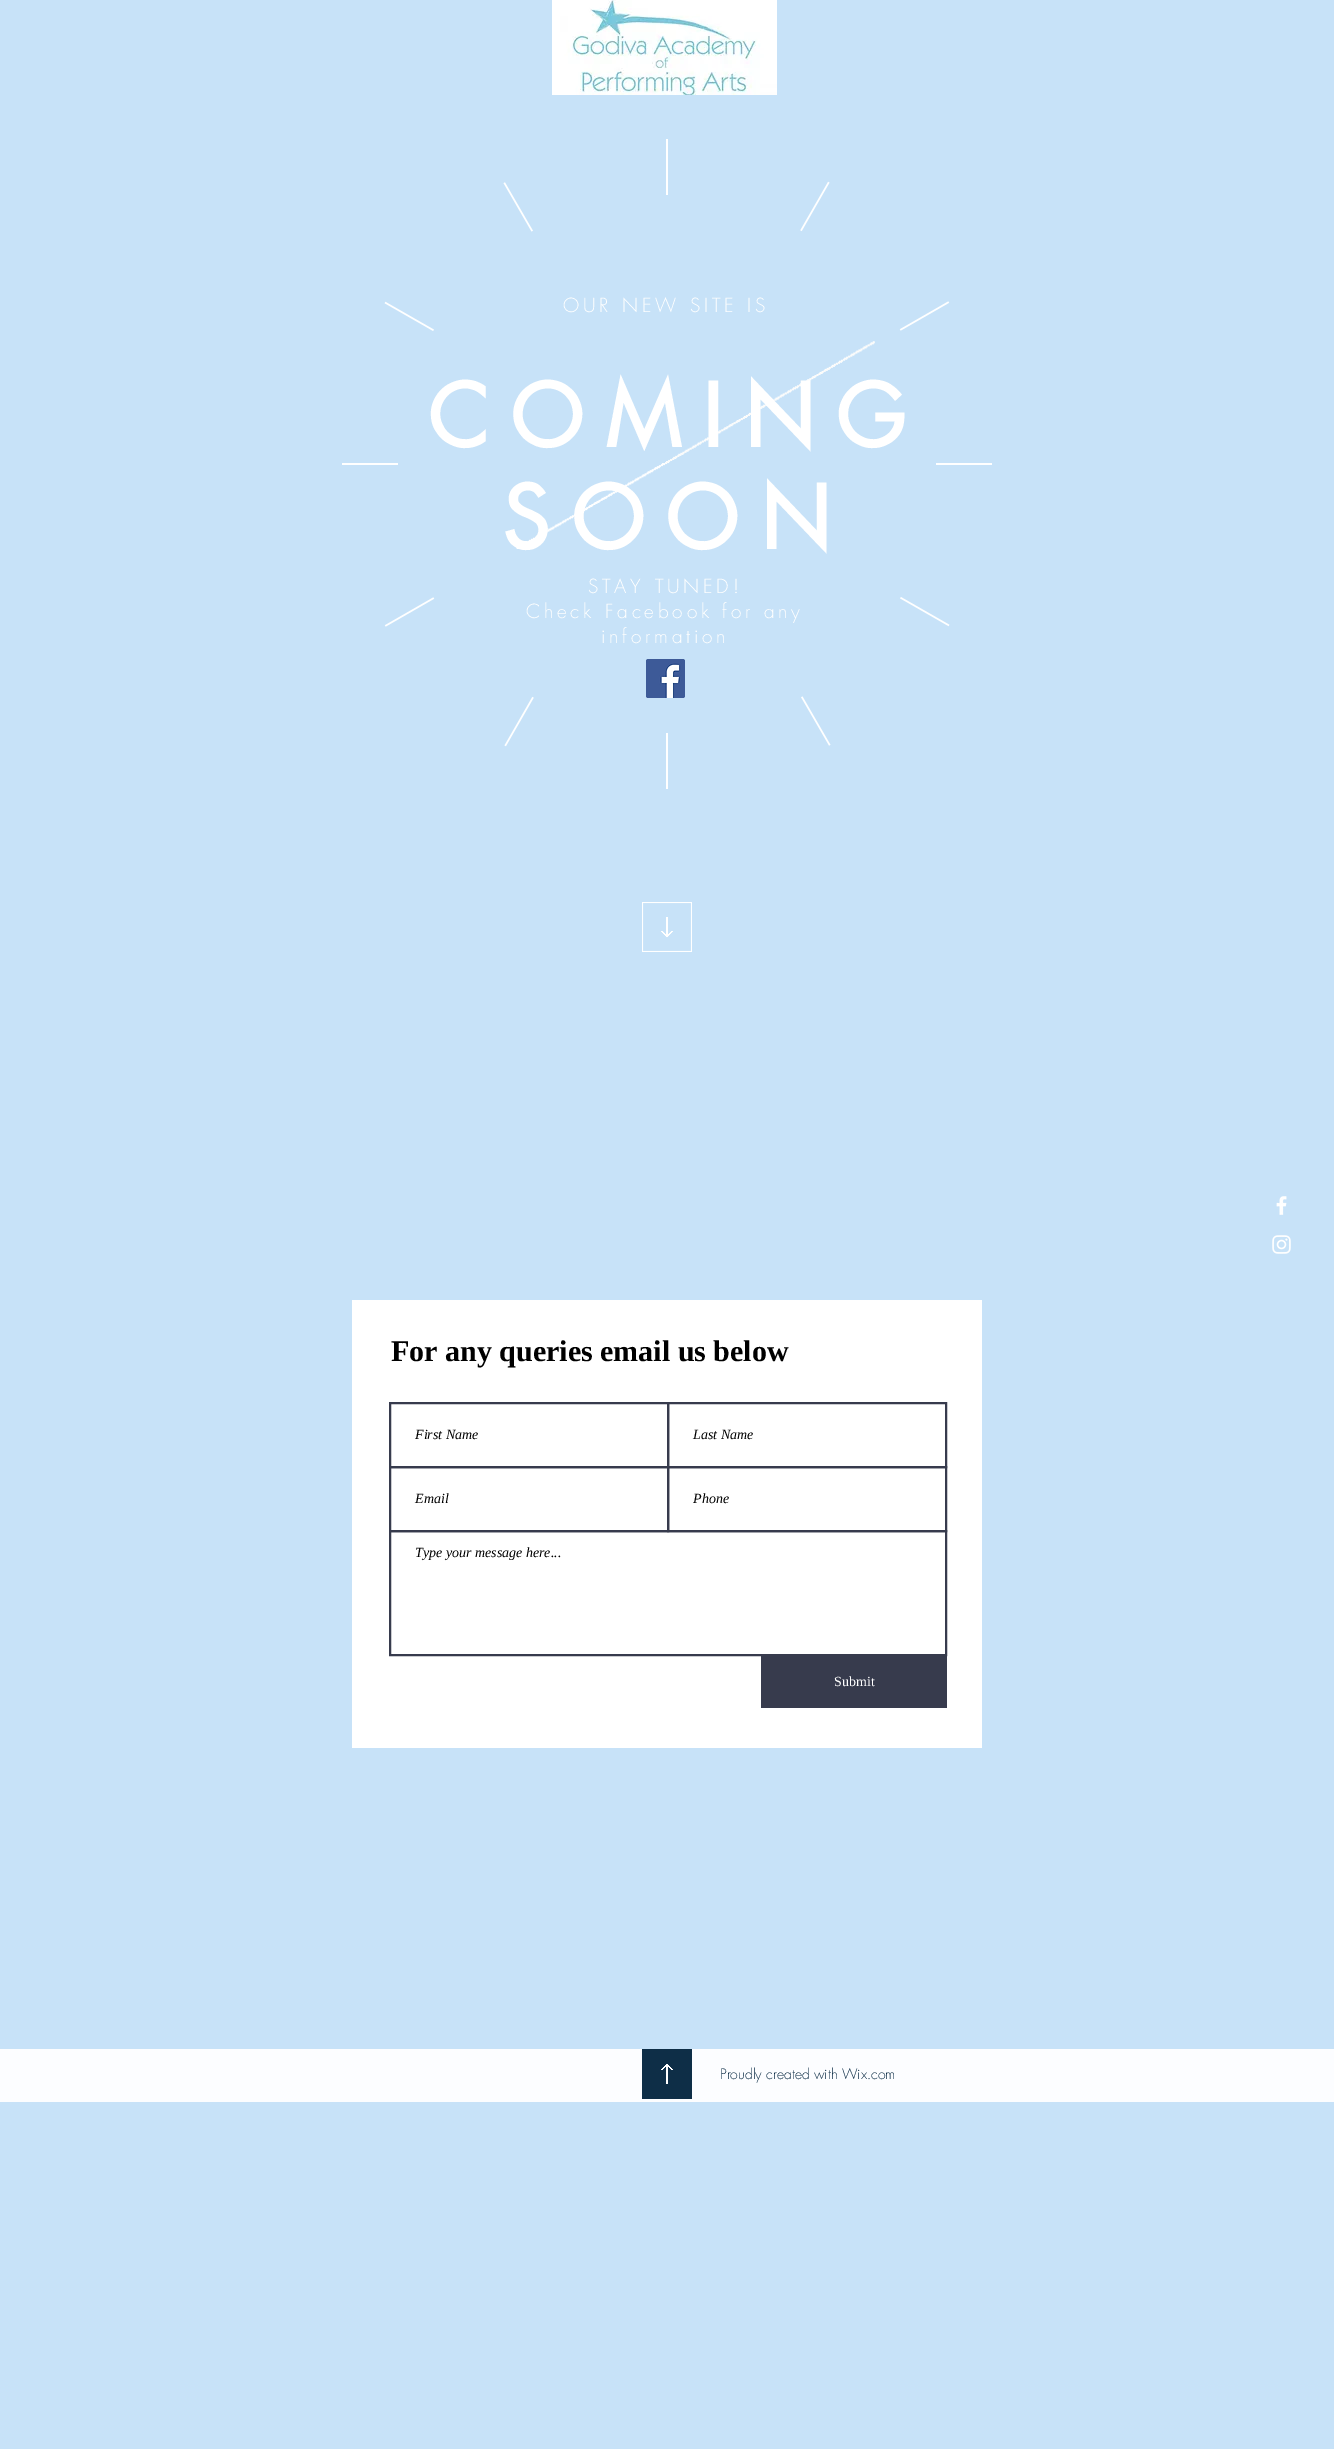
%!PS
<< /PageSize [1334 2449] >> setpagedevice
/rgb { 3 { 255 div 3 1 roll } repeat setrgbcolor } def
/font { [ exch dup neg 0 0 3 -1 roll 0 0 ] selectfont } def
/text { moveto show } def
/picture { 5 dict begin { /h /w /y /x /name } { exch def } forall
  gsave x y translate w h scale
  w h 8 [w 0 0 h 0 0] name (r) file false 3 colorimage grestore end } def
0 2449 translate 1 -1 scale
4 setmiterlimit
199 226 248 rgb
0 0 1334 2449 rectfill
(img_01.rgb) 552 0 225 95 picture
(img_02.rgb) 342 139 650 650 picture
(img_03.rgb) 516 341 359 208 picture
(img_04.rgb) 646 659 39 39 picture
(img_05.rgb) 642 902 50 50 picture
255 255 255 rgb
352 1300 630 448 rectfill
55 59 77 rgb
2 setlinewidth
390 1403 278 64 rectstroke
668 1403 278 64 rectstroke
390 1467 278 64 rectstroke
668 1467 278 64 rectstroke
390 1531 556 124 rectstroke
761 1656 186 52 rectfill
(img_06.rgb) 1276 1196 11 19 picture
(img_07.rgb) 1272 1235 19 19 picture
252 253 255 rgb
0 2049 1334 53 rectfill
(img_08.rgb) 642 2049 50 50 picture
/futura-Light 19 font
255 255 255 rgb
563 312 moveto 3.8 0 (OUR NEW SITE IS) ashow
/futura-Bold 85 font
428 447 moveto 21.25 0 (COMING) ashow
502 549 moveto 21.25 0 (SOON) ashow
/futura-Light 19 font
588 593 moveto 3.8 0 (STAY TUNED!) ashow
526 618 moveto 3.8 0 (Check Facebook for any) ashow
601 643 moveto 3.8 0 (information) ashow
/LiberationSerif-Bold 30 font
0 0 0 rgb
(For any queries email us below) 391 1361 text
/LiberationSerif-Italic 14 font
(First Name) 415 1439 text
(Last Name) 693 1439 text
(Email) 415 1503 text
(Phone) 693 1503 text
(Type your message here...) 415 1557 text
/LiberationSerif-Regular 14 font
255 255 255 rgb
(Submit) 834 1686 text
/futura-Light 14 font
14 46 71 rgb
(Proudly created with Wix.com) 720 2079 text
showpage
